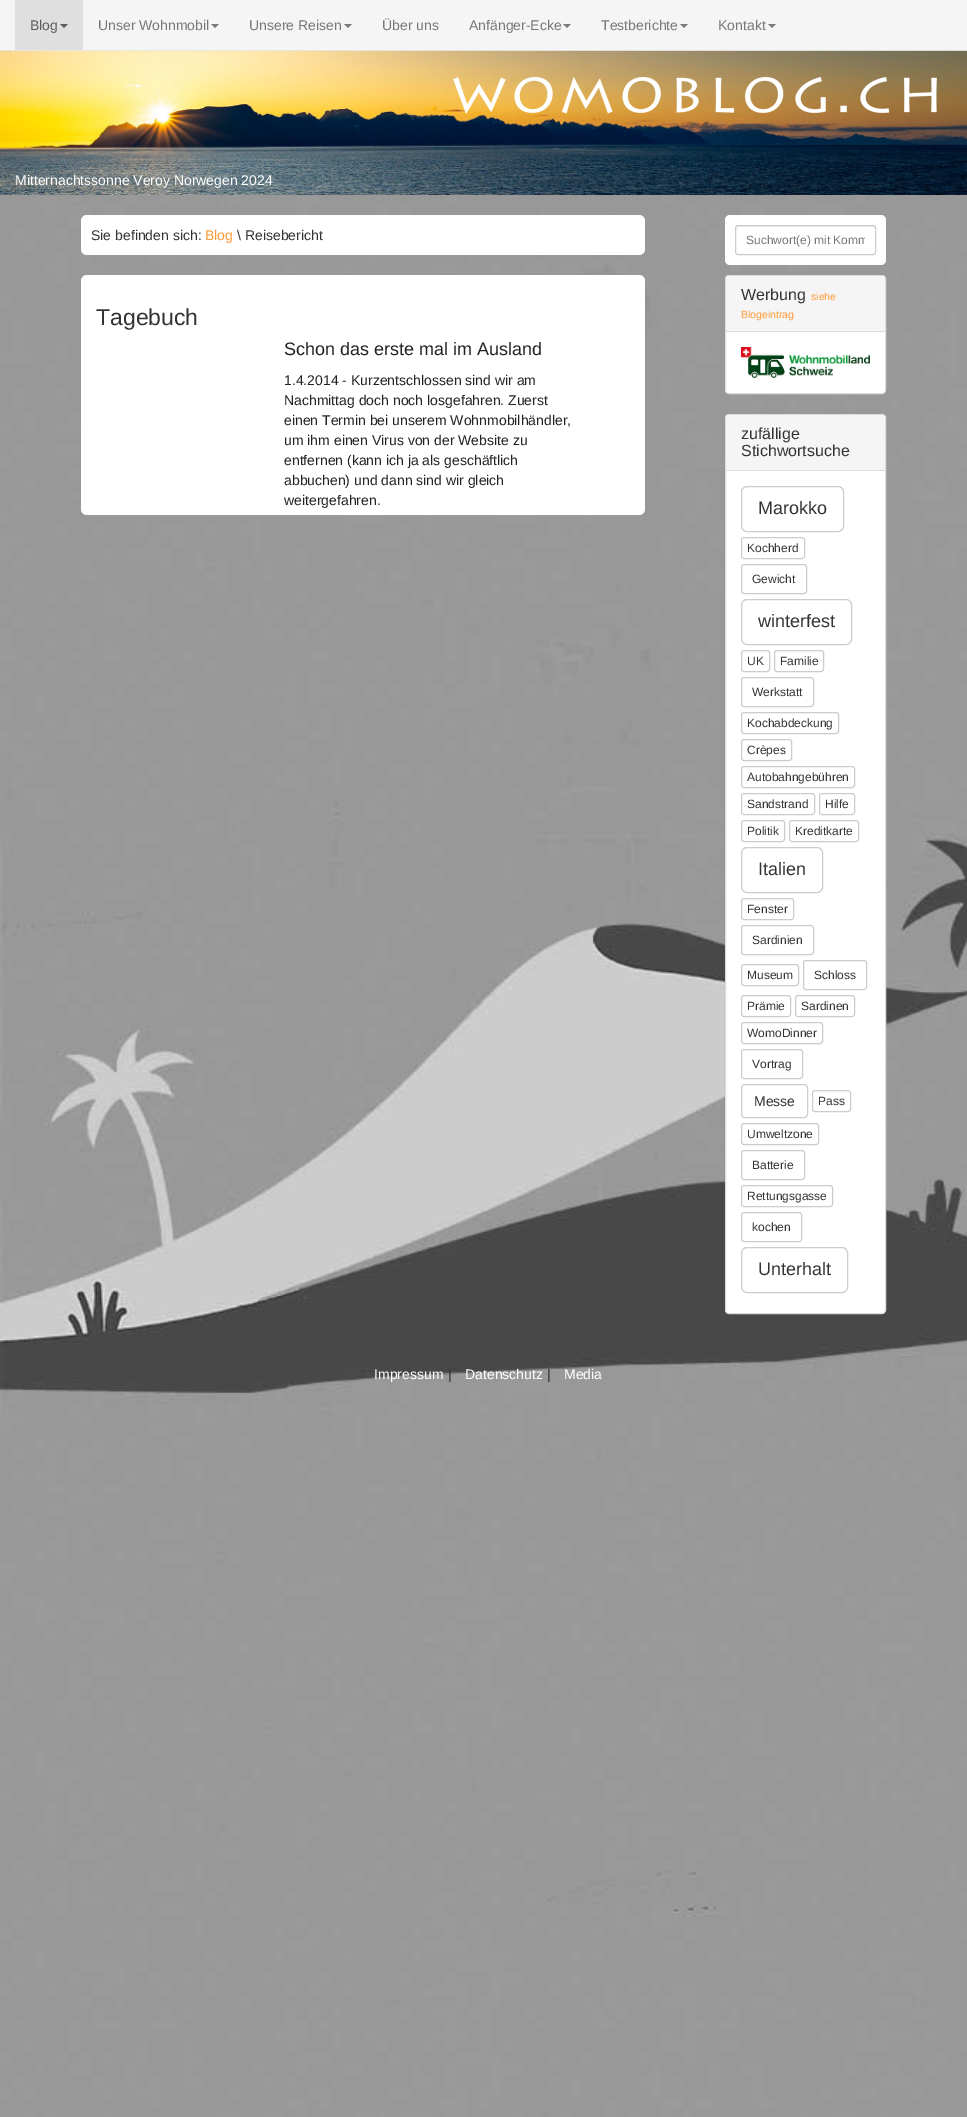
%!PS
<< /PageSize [967 2117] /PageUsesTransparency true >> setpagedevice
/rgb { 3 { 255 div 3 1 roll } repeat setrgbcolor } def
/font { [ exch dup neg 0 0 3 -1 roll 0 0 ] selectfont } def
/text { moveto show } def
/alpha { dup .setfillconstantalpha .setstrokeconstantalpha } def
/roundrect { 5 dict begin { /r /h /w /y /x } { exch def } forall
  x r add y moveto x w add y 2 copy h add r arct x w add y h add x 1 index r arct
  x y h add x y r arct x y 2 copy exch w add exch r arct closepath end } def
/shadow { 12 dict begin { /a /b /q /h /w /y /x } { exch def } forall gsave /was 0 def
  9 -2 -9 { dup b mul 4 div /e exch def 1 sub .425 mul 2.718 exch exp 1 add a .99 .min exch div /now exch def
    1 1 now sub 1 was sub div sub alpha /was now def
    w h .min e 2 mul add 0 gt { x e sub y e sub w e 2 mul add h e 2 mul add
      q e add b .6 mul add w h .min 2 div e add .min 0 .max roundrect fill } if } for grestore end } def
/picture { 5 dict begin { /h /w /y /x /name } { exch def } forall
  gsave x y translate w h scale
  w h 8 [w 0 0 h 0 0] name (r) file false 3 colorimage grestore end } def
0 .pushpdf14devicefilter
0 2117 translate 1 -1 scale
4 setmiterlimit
255 255 255 rgb
0 0 967 2117 rectfill
(img_01.rgb) 0 0 967 2117 picture
0.9 alpha
0 0 967 50 rectfill
1 alpha
(img_03.rgb) 0 50 967 145 picture
0.9 alpha
231 231 231 rgb
0 50 967 1 rectfill
1 alpha
223 223 223 rgb
15 0 68 50 rectfill
92 92 92 rgb
60 24 moveto 8 0 rlineto -4 4 rlineto closepath fill
122 122 122 rgb
211 24 moveto 8 0 rlineto -4 4 rlineto closepath fill
344 24 moveto 8 0 rlineto -4 4 rlineto closepath fill
563 24 moveto 8 0 rlineto -4 4 rlineto closepath fill
680 24 moveto 8 0 rlineto -4 4 rlineto closepath fill
768 24 moveto 8 0 rlineto -4 4 rlineto closepath fill
(img_02.rgb) 453 76 484 38 picture
255 255 255 rgb
81 215 564 40 6 roundrect fill
725 215 161 50 5 roundrect fill
236 236 236 rgb
738 227 moveto 135 0 rlineto 1 0 2 1 2 2 rcurveto 0 -1 0 -3 -2 -3 rcurveto -135 0 rlineto -2 0 -2 2 -2 3 rcurveto 0 -1 1 -2 2 -2 rcurveto closepath fill
204 204 204 rgb
735.5 225.5 140 29 2.5 roundrect stroke
255 255 255 rgb
81 275 564 240 6 roundrect fill
725.5 275.5 160 118 3.5 roundrect gsave fill grestore
221 221 221 rgb
stroke
245 245 245 rgb
729 276 moveto 153 0 rlineto 1.5 0 3 1.5 3 3 rcurveto 0 53 rlineto -159 0 rlineto 0 -53 rlineto 0 -1.5 1.5 -3 3 -3 rcurveto closepath fill
221 221 221 rgb
726 331 159 1 rectfill
(img_04.rgb) 741 347 129 31 picture
0 0 0 rgb
725 415 161 900 4 0.5 0.05 shadow
255 255 255 rgb
725.5 414.5 160 899 3.5 roundrect gsave fill grestore
221 221 221 rgb
stroke
245 245 245 rgb
729 415 moveto 153 0 rlineto 1.5 0 3 1.5 3 3 rcurveto 0 53 rlineto -159 0 rlineto 0 -53 rlineto 0 -1.5 1.5 -3 3 -3 rcurveto closepath fill
221 221 221 rgb
726 470 159 1 rectfill
204 204 204 rgb
741.5 486.5 102 45 5.5 roundrect stroke
741.5 537.5 63 21 2.5 roundrect stroke
741.5 564.5 65 29 2.5 roundrect stroke
741.5 599.5 110 45 5.5 roundrect stroke
741.5 650.5 28 21 2.5 roundrect stroke
774.5 650.5 49 21 2.5 roundrect stroke
741.5 677.5 72 29 2.5 roundrect stroke
741.5 712.5 97 21 2.5 roundrect stroke
741.5 739.5 50 21 2.5 roundrect stroke
741.5 766.5 113 21 2.5 roundrect stroke
741.5 793.5 73 21 2.5 roundrect stroke
819.5 793.5 35 21 2.5 roundrect stroke
741.5 820.5 43 21 2.5 roundrect stroke
789.5 820.5 69 21 2.5 roundrect stroke
741.5 847.5 81 45 5.5 roundrect stroke
741.5 898.5 52 21 2.5 roundrect stroke
741.5 925.5 72 29 2.5 roundrect stroke
741.5 964.5 57 21 2.5 roundrect stroke
803.5 960.5 63 29 2.5 roundrect stroke
741.5 995.5 49 21 2.5 roundrect stroke
795.5 995.5 59 21 2.5 roundrect stroke
741.5 1022.5 81 21 2.5 roundrect stroke
741.5 1049.5 61 29 2.5 roundrect stroke
741.5 1084.5 66 33 3.5 roundrect stroke
812.5 1090.5 38 21 2.5 roundrect stroke
741.5 1123.5 77 21 2.5 roundrect stroke
741.5 1150.5 63 29 2.5 roundrect stroke
741.5 1185.5 91 21 2.5 roundrect stroke
741.5 1212.5 60 29 2.5 roundrect stroke
741.5 1247.5 106 45 5.5 roundrect stroke
/LiberationSans-Regular 14 font
92 92 92 rgb
(Blog) 30 30 text
119 119 119 rgb
(Unser Wohnmobil) 98 30 text
(Unsere Reisen) 249 30 text
(Über uns) 382 30 text
(Anfänger-Ecke) 469 30 text
(Testberichte) 601 30 text
(Kontakt) 718 30 text
255 255 255 rgb
(Mitternachtssonne Veroy Norwegen 2024) 15 185 text
51 51 51 rgb
(Sie befinden sich:) 91 240 text
255 153 51 rgb
(Blog) 205 240 text
51 51 51 rgb
(\\ Reisebericht) 237 240 text
gsave
746 233 119 14 rectclip
/LiberationSans-Regular 12 font
119 119 119 rgb
(Suchwort\(e\) mit Komm) 746 244 text
grestore
/LiberationSans-Regular 23 font
(Tagebuch) 96 325 text
/LiberationSans-Regular 18 font
34 34 34 rgb
(Schon das erste mal im Ausland) 284 355 text
/LiberationSans-Regular 14 font
(1.4.2014 - Kurzentschlossen sind wir am) 284 385 text
(Nachmittag doch noch losgefahren. Zuerst) 284 405 text
(einen Termin bei unserem Wohnmobilhändler,) 284 425 text
(um ihm einen Virus von der Website zu) 284 445 text
(entfernen \(kann ich ja als geschäftlich) 284 465 text
(abbuchen\) und dann sind wir gleich) 284 485 text
(weitergefahren.) 284 505 text
/LiberationSans-Regular 16 font
51 51 51 rgb
(Werbung) 741 300 text
/LiberationSans-Regular 10.5 font
255 153 51 rgb
(siehe) 811 300 text
(Blogeintrag) 741 318 text
/LiberationSans-Regular 16 font
51 51 51 rgb
(zufällige) 741 439 text
(Stichwortsuche) 741 456 text
/LiberationSans-Regular 18 font
(Marokko) 758 514 text
/LiberationSans-Regular 12 font
(Kochherd) 747 552 text
(Gewicht) 752 583 text
/LiberationSans-Regular 18 font
(winterfest) 758 627 text
/LiberationSans-Regular 12 font
(UK) 747 665 text
(Familie) 780 665 text
(Werkstatt) 752 696 text
(Kochabdeckung) 747 727 text
(Crèpes) 747 754 text
(Autobahngebühren) 747 781 text
(Sandstrand) 747 808 text
(Hilfe) 825 808 text
(Politik) 747 835 text
(Kreditkarte) 795 835 text
/LiberationSans-Regular 18 font
(Italien) 758 875 text
/LiberationSans-Regular 12 font
(Fenster) 747 913 text
(Sardinien) 752 944 text
(Museum) 747 979 text
(Schloss) 814 979 text
(Prämie) 747 1010 text
(Sardinen) 801 1010 text
(WomoDinner) 747 1037 text
(Vortrag) 752 1068 text
/LiberationSans-Regular 14 font
(Messe) 754 1106 text
/LiberationSans-Regular 12 font
(Pass) 818 1105 text
(Umweltzone) 747 1138 text
(Batterie) 752 1169 text
(Rettungsgasse) 747 1200 text
(kochen) 752 1231 text
/LiberationSans-Regular 18 font
(Unterhalt) 758 1275 text
/LiberationSans-Regular 14 font
255 255 255 rgb
(Impressum) 374 1379 text
51 51 51 rgb
(|) 448 1379 text
255 255 255 rgb
(Datenschutz) 465 1379 text
51 51 51 rgb
(|) 547 1379 text
255 255 255 rgb
(Media) 564 1379 text
.poppdf14devicefilter showpage
